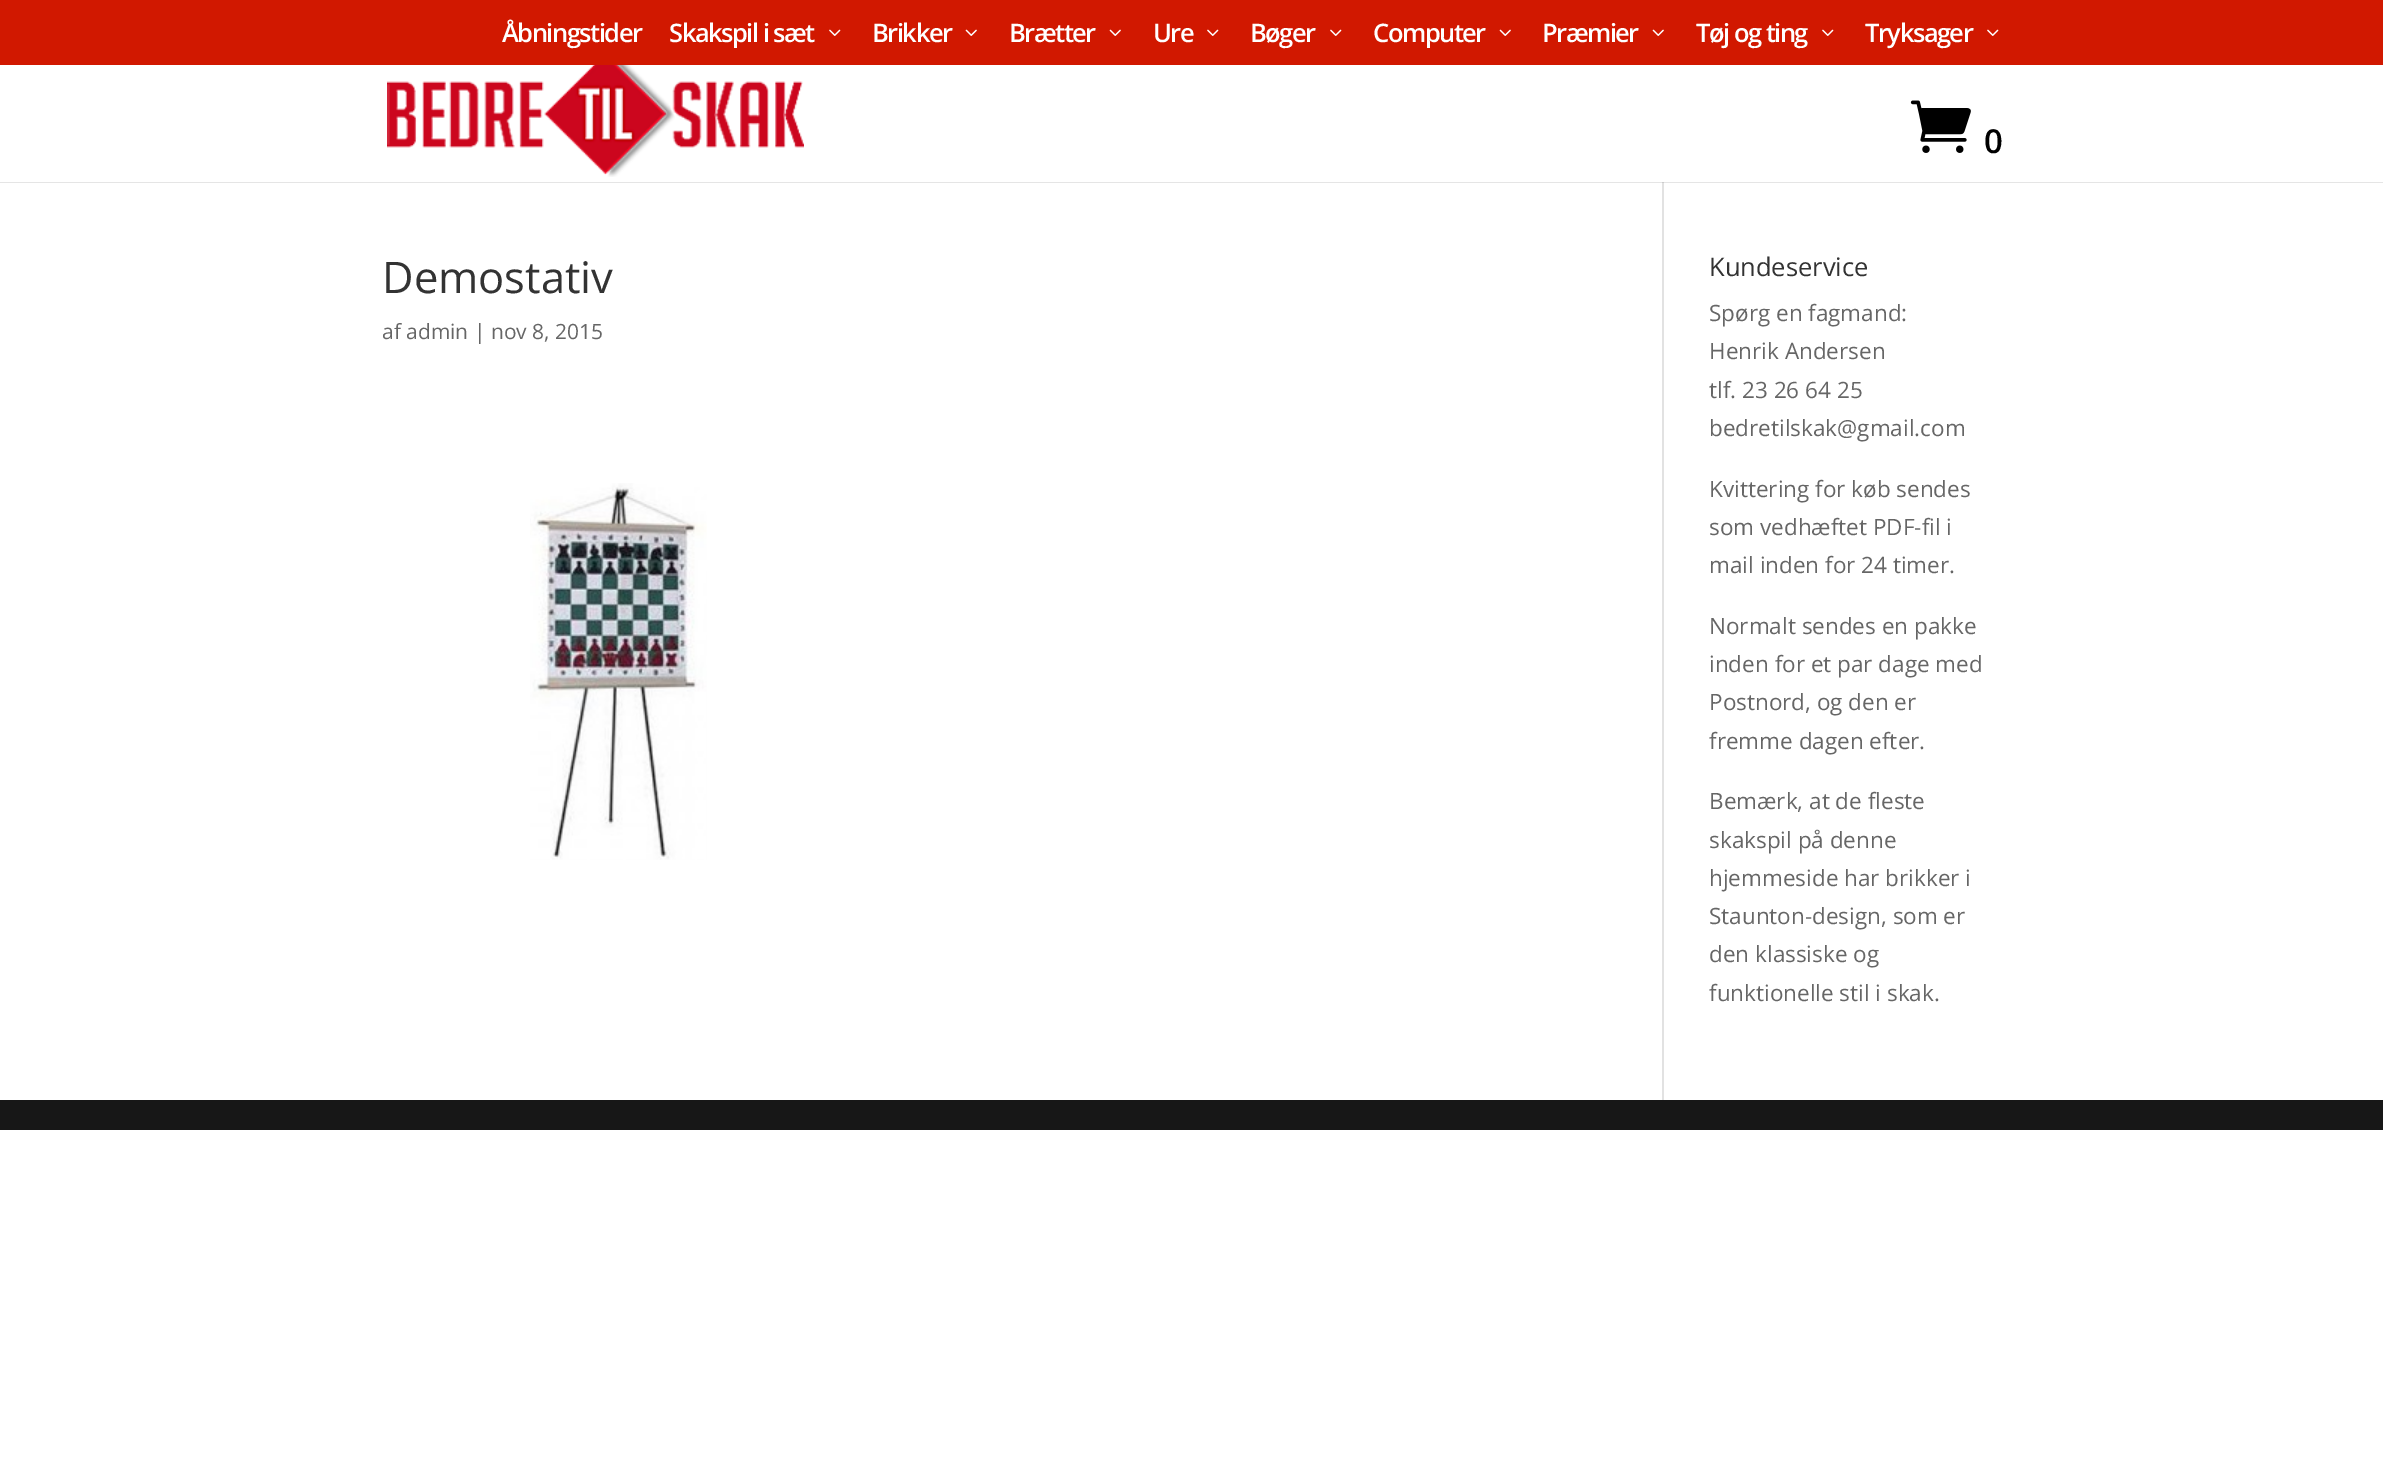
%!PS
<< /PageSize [2383 1475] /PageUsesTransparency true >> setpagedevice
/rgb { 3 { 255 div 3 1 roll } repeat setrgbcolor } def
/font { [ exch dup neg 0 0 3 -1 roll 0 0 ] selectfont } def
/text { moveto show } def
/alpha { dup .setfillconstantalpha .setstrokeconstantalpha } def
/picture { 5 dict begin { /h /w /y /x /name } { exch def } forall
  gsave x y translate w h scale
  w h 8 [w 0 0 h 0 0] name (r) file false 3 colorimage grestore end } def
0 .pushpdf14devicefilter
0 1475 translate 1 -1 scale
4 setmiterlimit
255 255 255 rgb
0 0 2383 1475 rectfill
209 24 0 rgb
0 0 2383 65 rectfill
(img_01.rgb) 829 29 12 7 picture
(img_02.rgb) 965 29 12 7 picture
(img_02.rgb) 1109 29 12 7 picture
(img_01.rgb) 1207 29 12 7 picture
(img_01.rgb) 1330 29 12 7 picture
(img_02.rgb) 1499 29 12 7 picture
(img_02.rgb) 1652 29 12 7 picture
(img_01.rgb) 1822 29 12 7 picture
(img_01.rgb) 1987 29 12 7 picture
(img_03.rgb) 1910 100 61 53 picture
226 226 226 rgb
1662 182 2 918 rectfill
0.1 alpha
0 0 0 rgb
0 182 moveto 0 1 rlineto 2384 0 rlineto 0 -136 rlineto 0 135 rlineto closepath fill
1 alpha
(img_04.rgb) 387 65 417 112 picture
(img_05.rgb) 530 483 177 377 picture
23 23 23 rgb
0 1100 2383 30 rectfill
/OpenSans-SemiBold 25.5 font
255 255 255 rgb
502 42 moveto -1.5 0 (Åbningstider) ashow
669 42 moveto -1.5 0 (Skakspil i sæt) ashow
872 42 moveto -1.5 0 (Brikker) ashow
1009 42 moveto -1.5 0 (Brætter) ashow
1153 42 moveto -1.5 0 (Ure) ashow
1250 42 moveto -1.5 0 (Bøger) ashow
1373 42 moveto -1.5 0 (Computer) ashow
1542 42 moveto -1.5 0 (Præmier) ashow
1696 42 moveto -1.5 0 (Tøj og ting) ashow
1865 42 moveto -1.5 0 (Tryksager) ashow
/OpenSans-SemiBold 33 font
0 0 0 rgb
1984 153 moveto -1.5 0 (0) ashow
/OpenSans-Regular 43.5 font
51 51 51 rgb
(Demostativ) 382 293 text
/OpenSans-Regular 21 font
102 102 102 rgb
(af admin | nov 8, 2015) 382 339 text
/OpenSans-Regular 25.5 font
51 51 51 rgb
(Kundeservice) 1709 276 text
/OpenSans-Regular 22.5 font
102 102 102 rgb
(Spørg en fagmand:) 1709 321 text
(Henrik Andersen) 1709 359 text
(tlf. 23 26 64 25) 1709 398 text
(bedretilskak@gmail.com) 1709 436 text
(Kvittering for køb sendes) 1709 497 text
(som vedhæftet PDF-fil i) 1709 535 text
(mail inden for 24 timer.) 1709 573 text
(Normalt sendes en pakke) 1709 634 text
(inden for et par dage med) 1709 672 text
(Postnord, og den er) 1709 710 text
(fremme dagen efter.) 1709 749 text
(Bemærk, at de fleste) 1709 809 text
(skakspil på denne) 1709 848 text
(hjemmeside har brikker i) 1709 886 text
(Staunton-design, som er) 1709 924 text
(den klassiske og) 1709 962 text
(funktionelle stil i skak.) 1709 1001 text
.poppdf14devicefilter showpage
